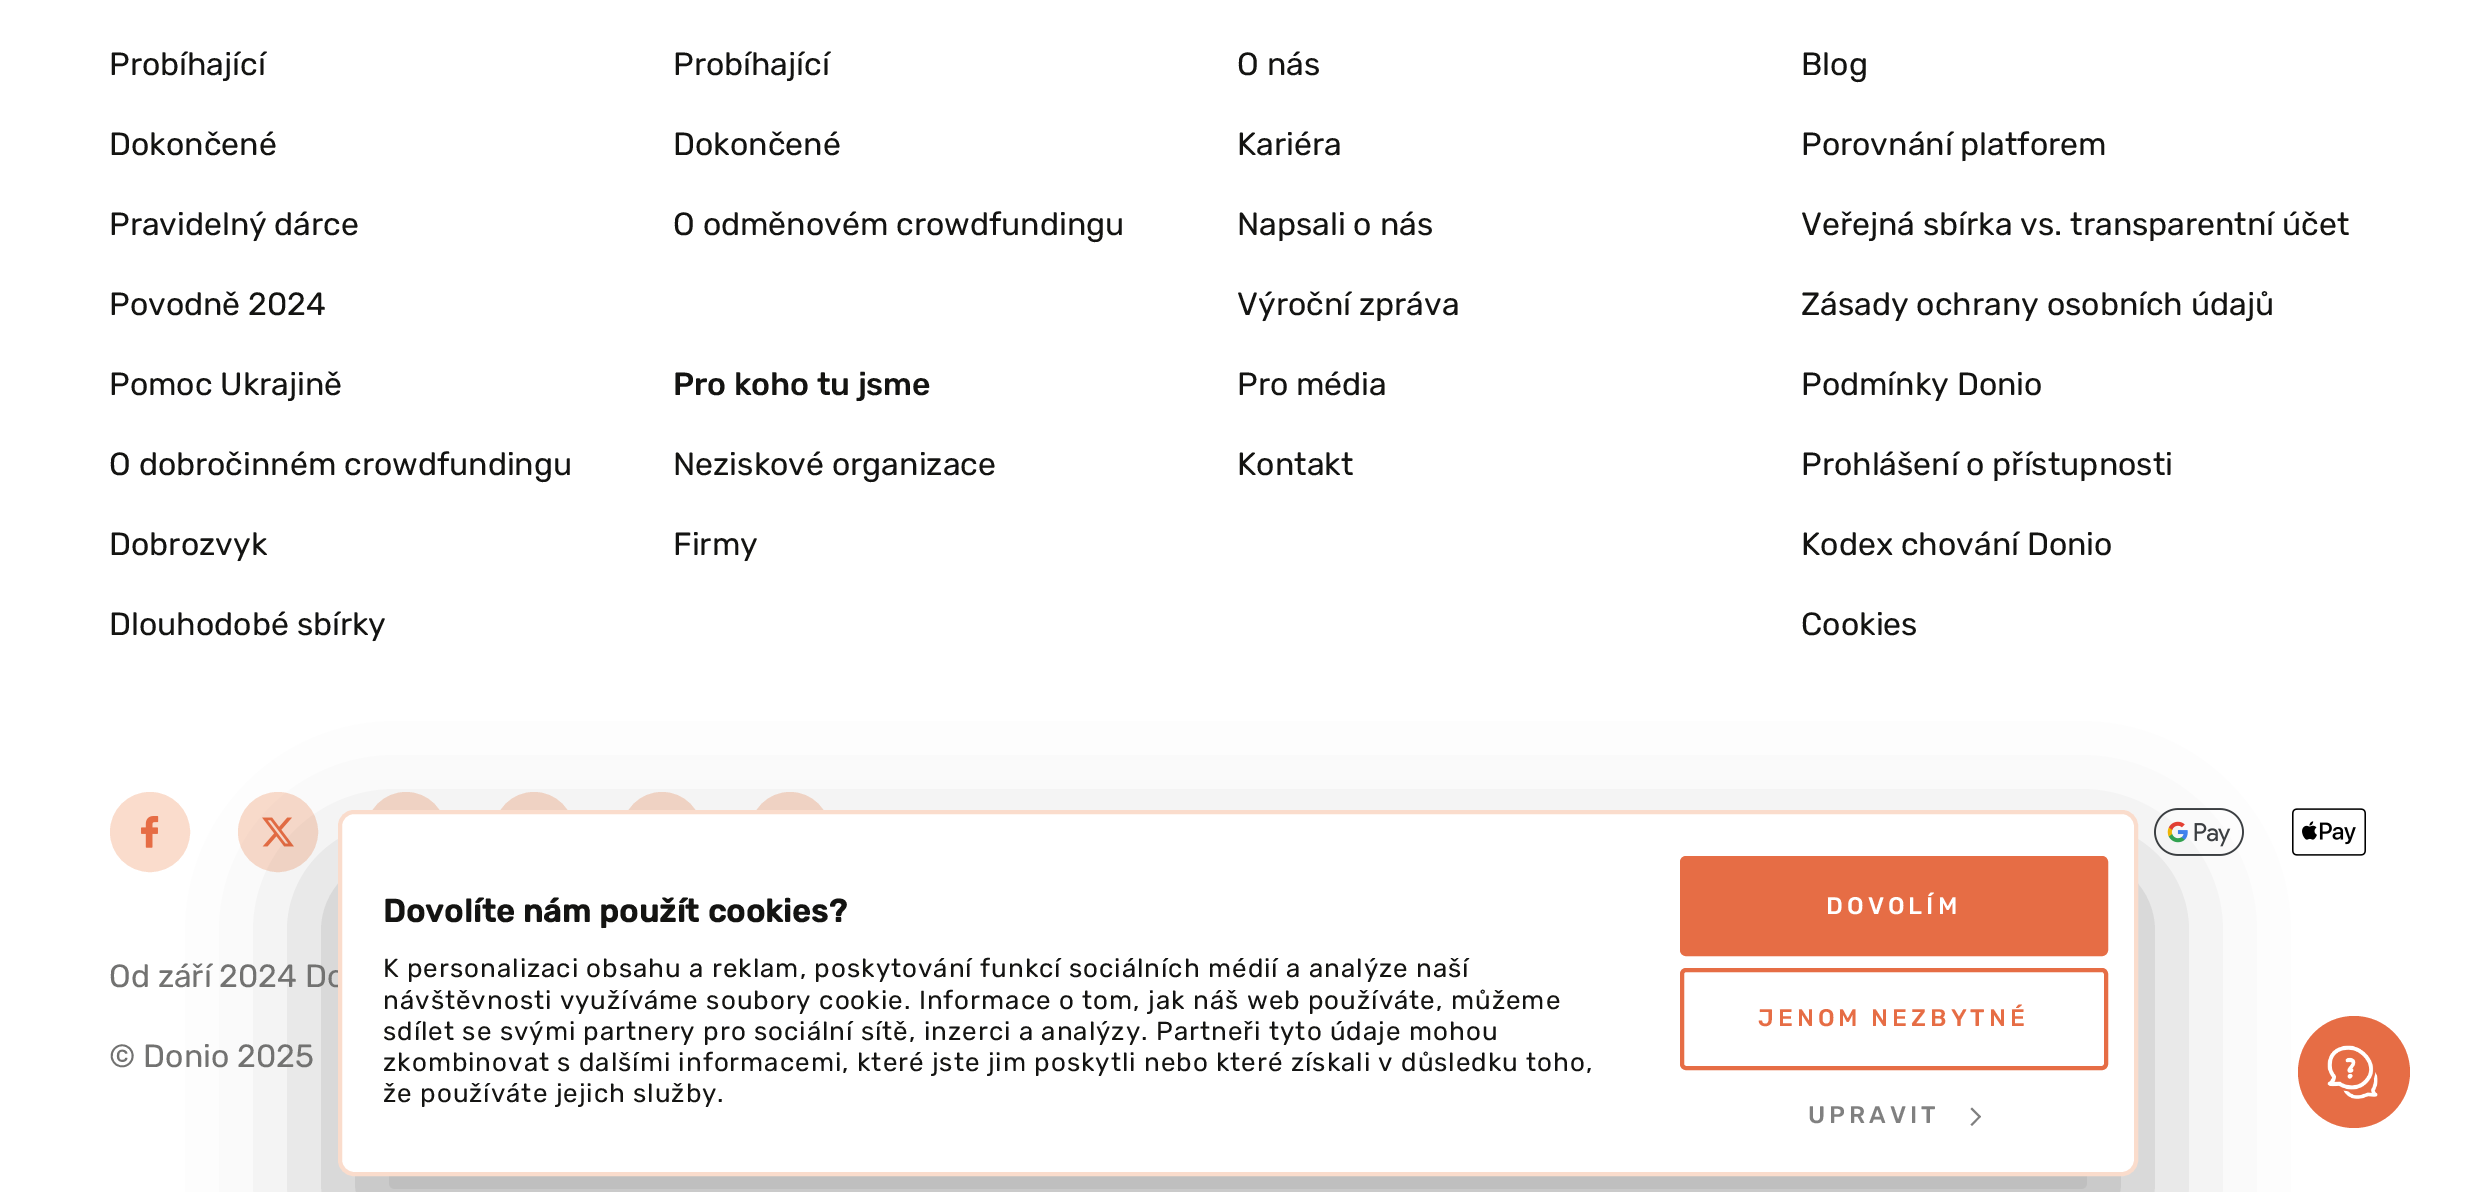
%!PS
<< /PageSize [2474 1192] /PageUsesTransparency true >> setpagedevice
/rgb { 3 { 255 div 3 1 roll } repeat setrgbcolor } def
/font { [ exch dup neg 0 0 3 -1 roll 0 0 ] selectfont } def
/text { moveto show } def
/alpha { dup .setfillconstantalpha .setstrokeconstantalpha } def
/circle { newpath 0 360 arc closepath } def
/roundrect { 5 dict begin { /r /h /w /y /x } { exch def } forall
  x r add y moveto x w add y 2 copy h add r arct x w add y h add x 1 index r arct
  x y h add x y r arct x y 2 copy exch w add exch r arct closepath end } def
/shadow { 12 dict begin { /a /b /q /h /w /y /x } { exch def } forall gsave /was 0 def
  9 -2 -9 { dup b mul 4 div /e exch def 1 sub .425 mul 2.718 exch exp 1 add a .99 .min exch div /now exch def
    1 1 now sub 1 was sub div sub alpha /was now def
    w h .min e 2 mul add 0 gt { x e sub y e sub w e 2 mul add h e 2 mul add
      q e add b .6 mul add w h .min 2 div e add .min 0 .max roundrect fill } if } for grestore end } def
/picture { 5 dict begin { /h /w /y /x /name } { exch def } forall
  gsave x y translate w h scale
  w h 8 [w 0 0 h 0 0] name (r) file false 3 colorimage grestore end } def
0 .pushpdf14devicefilter
0 1192 translate 1 -1 scale
4 setmiterlimit
255 255 255 rgb
0 0 2474 1192 rectfill
250 220 204 rgb
150 832 38 circle gsave fill grestore
4 setlinewidth
stroke
(img_01.rgb) 141 816 18 32 picture
278 832 38 circle gsave fill grestore
stroke
(img_02.rgb) 262 817 32 30 picture
406 832 38 circle gsave fill grestore
stroke
534 832 38 circle gsave fill grestore
stroke
662 832 38 circle gsave fill grestore
stroke
790 832 38 circle gsave fill grestore
stroke
(img_03.rgb) 2154 808 90 48 picture
(img_04.rgb) 2292 808 74 48 picture
230 109 69 rgb
2354 1072 56 circle fill
(img_05.rgb) 2327 1045 51 54 picture
0 0 0 rgb
338 874 1800 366 16 68 0.3 shadow
/Rubik-Regular 32 font
20 20 18 rgb
(Probíhající) 109 75 text
(Dokončené) 109 155 text
(Pravidelný dárce) 109 235 text
(Povodně 2024) 109 315 text
(Pomoc Ukrajině) 109 395 text
(O dobročinném crowdfundingu) 109 475 text
(Dobrozvyk) 109 555 text
(Dlouhodobé sbírky) 109 635 text
(Probíhající) 673 75 text
(Dokončené) 673 155 text
(O odměnovém crowdfundingu) 673 235 text
/Rubik-Medium 32 font
(Pro koho tu jsme) 673 395 text
/Rubik-Regular 32 font
(Neziskové organizace) 673 475 text
(Firmy) 673 555 text
(O nás) 1237 75 text
(Kariéra) 1237 155 text
(Napsali o nás) 1237 235 text
(Výroční zpráva) 1237 315 text
(Pro média) 1237 395 text
(Kontakt) 1237 475 text
(Blog) 1801 75 text
(Porovnání platforem) 1801 155 text
(Veřejná sbírka vs. transparentní účet) 1801 235 text
(Zásady ochrany osobních údajů) 1801 315 text
(Podmínky Donio) 1801 395 text
(Prohlášení o přístupnosti) 1801 475 text
(Kodex chování Donio) 1801 555 text
(Cookies) 1801 635 text
114 114 113 rgb
(Od září 2024 Do) 109 987 text
(© Donio 2025) 109 1067 text
255 255 255 rgb
340 812 1796 362 14 roundrect gsave fill grestore
250 220 204 rgb
stroke
/Rubik-Bold 32 font
20 20 18 rgb
383 922 moveto 0.5 0 (Dovolíte nám použít cookies?) ashow
/Rubik-Regular 26 font
383 977 moveto 1 0 (K personalizaci obsahu a reklam, poskytování funkcí sociálních médií a analýze naší) ashow
383 1009 moveto 1 0 (návštěvnosti využíváme soubory cookie. Informace o tom, jak náš web používáte, můžeme) ashow
383 1040 moveto 1 0 (sdílet se svými partnery pro sociální sítě, inzerci a analýzy. Partneři tyto údaje mohou) ashow
383 1071 moveto 1 0 (zkombinovat s dalšími informacemi, které jste jim poskytli nebo které získali v důsledku toho,) ashow
383 1102 moveto 1 0 (že používáte jejich služby.) ashow
230 109 69 rgb
1682 858 424 96 4 roundrect gsave fill grestore
stroke
/Rubik-Medium 24 font
255 255 255 rgb
1826 914 moveto 4 0 (DOVOLÍM) ashow
230 109 69 rgb
1682 970 424 98 4 roundrect stroke
1758 1026 moveto 4 0 (JENOM NEZBYTNÉ) ashow
128 128 128 rgb
1808 1123 moveto 4 0 (UPRAVIT) ashow
1972 1107.5 moveto 9 9 rlineto -1.5 1.5 rlineto -9 -9 rlineto closepath fill
1979.5 1115.5 moveto 1.5 1 rlineto -9 9.5 rlineto -1.5 -1.5 rlineto closepath fill
.poppdf14devicefilter showpage
